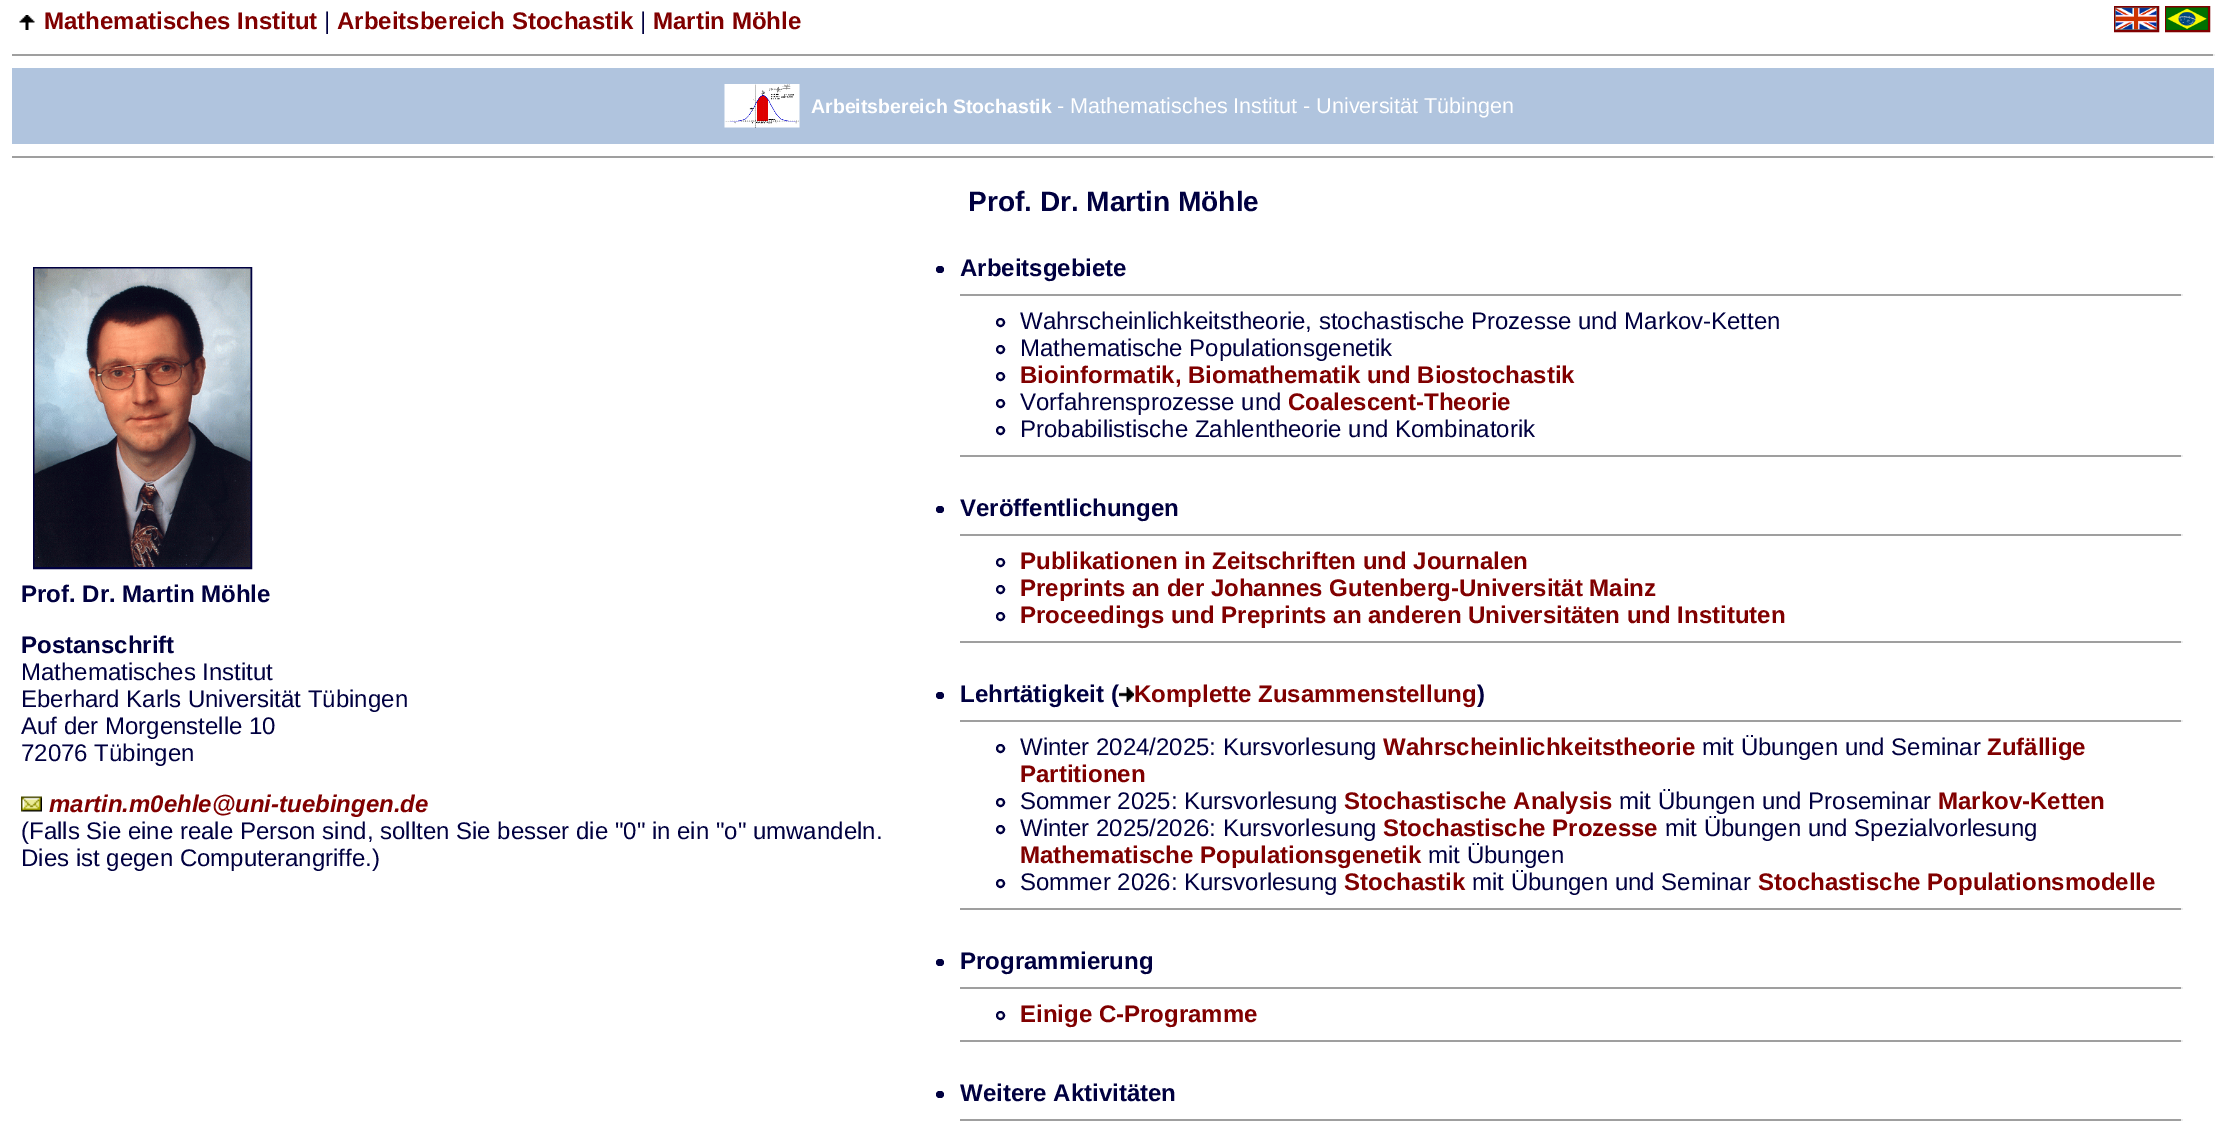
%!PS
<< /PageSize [2225 1123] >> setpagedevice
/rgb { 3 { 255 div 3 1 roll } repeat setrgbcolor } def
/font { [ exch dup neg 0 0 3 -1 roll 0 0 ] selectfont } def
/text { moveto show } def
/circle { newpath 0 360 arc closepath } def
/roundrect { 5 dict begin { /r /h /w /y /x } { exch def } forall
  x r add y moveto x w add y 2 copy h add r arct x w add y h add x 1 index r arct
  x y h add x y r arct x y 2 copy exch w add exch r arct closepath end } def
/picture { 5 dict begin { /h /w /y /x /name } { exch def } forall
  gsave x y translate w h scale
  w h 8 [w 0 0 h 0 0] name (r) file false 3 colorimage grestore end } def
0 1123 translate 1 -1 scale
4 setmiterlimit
255 255 255 rgb
0 0 2225 1123 rectfill
(img_01.rgb) 19 15 16 15 picture
128 0 0 rgb
2 setlinewidth
2115 7 43 24 rectstroke
2166 7 43 24 rectstroke
(img_02.rgb) 2115 7 42 23 picture
(img_03.rgb) 2166 7 42 23 picture
159 159 159 rgb
12 54 2202 2 rectfill
238 238 238 rgb
2213 54 2 2 rectfill
176 196 222 rgb
12 68 2202 76 rectfill
(img_04.rgb) 724 84 76 44 picture
159 159 159 rgb
12 156 2202 2 rectfill
238 238 238 rgb
2213 156 2 2 rectfill
0 0 64 rgb
34 268 217 300 rectstroke
(img_05.rgb) 34 268 217 299 picture
(img_06.rgb) 21 796 21 16 picture
936 266 8 7 3.5 roundrect fill
159 159 159 rgb
960 294 1223 2 rectfill
238 238 238 rgb
2181 294 2 2 rectfill
0 0 64 rgb
1000.5 322.5 3.5 circle stroke
1000.5 349.5 3.5 circle stroke
1000.5 376.5 3.5 circle stroke
1000.5 403.5 3.5 circle stroke
1000.5 430.5 3.5 circle stroke
159 159 159 rgb
960 455 1223 2 rectfill
238 238 238 rgb
2181 455 2 2 rectfill
0 0 64 rgb
936 506 8 7 3.5 roundrect fill
159 159 159 rgb
960 534 1223 2 rectfill
238 238 238 rgb
2181 534 2 2 rectfill
0 0 64 rgb
1000.5 562.5 3.5 circle stroke
1000.5 589.5 3.5 circle stroke
1000.5 616.5 3.5 circle stroke
159 159 159 rgb
960 641 1223 2 rectfill
238 238 238 rgb
2181 641 2 2 rectfill
0 0 64 rgb
936 692 8 7 3.5 roundrect fill
(img_07.rgb) 1119 687 15 15 picture
159 159 159 rgb
960 720 1223 2 rectfill
238 238 238 rgb
2181 720 2 2 rectfill
0 0 64 rgb
1000.5 748.5 3.5 circle stroke
1000.5 802.5 3.5 circle stroke
1000.5 829.5 3.5 circle stroke
1000.5 883.5 3.5 circle stroke
159 159 159 rgb
960 908 1223 2 rectfill
238 238 238 rgb
2181 908 2 2 rectfill
0 0 64 rgb
936 959 8 7 3.5 roundrect fill
159 159 159 rgb
960 987 1223 2 rectfill
238 238 238 rgb
2181 987 2 2 rectfill
0 0 64 rgb
1000.5 1015.5 3.5 circle stroke
159 159 159 rgb
960 1040 1223 2 rectfill
238 238 238 rgb
2181 1040 2 2 rectfill
0 0 64 rgb
936 1091 8 7 3.5 roundrect fill
159 159 159 rgb
960 1119 1223 2 rectfill
238 238 238 rgb
2181 1119 2 2 rectfill
/LiberationSans-Bold 24 font
128 0 0 rgb
(Mathematisches Institut) 44 29 text
/LiberationSans-Regular 24 font
0 0 64 rgb
(|) 324 29 text
/LiberationSans-Bold 24 font
128 0 0 rgb
(Arbeitsbereich Stochastik) 337 29 text
/LiberationSans-Regular 24 font
0 0 64 rgb
(|) 640 29 text
/LiberationSans-Bold 24 font
128 0 0 rgb
(Martin Möhle) 653 29 text
/LiberationSans-Bold 19.5 font
255 255 255 rgb
(Arbeitsbereich Stochastik) 811 113 text
/LiberationSans-Regular 21.6 font
(- Mathematisches Institut - Universität Tübingen) 1057 113 text
/LiberationSans-Bold 28 font
0 0 64 rgb
(Prof. Dr. Martin Möhle) 968 211 text
/LiberationSans-Bold 24 font
(Prof. Dr. Martin Möhle) 21 602 text
(Postanschrift) 21 653 text
/LiberationSans-Regular 24 font
(Mathematisches Institut) 21 680 text
(Eberhard Karls Universität Tübingen) 21 707 text
(Auf der Morgenstelle 10) 21 734 text
(72076 Tübingen) 21 761 text
/LiberationSans-BoldItalic 24 font
128 0 0 rgb
(martin.m0ehle@uni-tuebingen.de) 49 812 text
/LiberationSans-Regular 24 font
0 0 64 rgb
(\(Falls Sie eine reale Person sind, sollten Sie besser die "0" in ein "o" umwandeln.) 21 839 text
(Dies ist gegen Computerangriffe.\)) 21 866 text
/LiberationSans-Bold 24 font
(Arbeitsgebiete) 960 276 text
/LiberationSans-Regular 24 font
(Wahrscheinlichkeitstheorie, stochastische Prozesse und Markov-Ketten) 1020 329 text
(Mathematische Populationsgenetik) 1020 356 text
/LiberationSans-Bold 24 font
128 0 0 rgb
(Bioinformatik, Biomathematik und Biostochastik) 1020 383 text
/LiberationSans-Regular 24 font
0 0 64 rgb
(Vorfahrensprozesse und) 1020 410 text
/LiberationSans-Bold 24 font
128 0 0 rgb
(Coalescent-Theorie) 1288 410 text
/LiberationSans-Regular 24 font
0 0 64 rgb
(Probabilistische Zahlentheorie und Kombinatorik) 1020 437 text
/LiberationSans-Bold 24 font
(Veröffentlichungen) 960 516 text
128 0 0 rgb
(Publikationen in Zeitschriften und Journalen) 1020 569 text
(Preprints an der Johannes Gutenberg-Universität Mainz) 1020 596 text
(Proceedings und Preprints an anderen Universitäten und Instituten) 1020 623 text
0 0 64 rgb
(Lehrtätigkeit \() 960 702 text
128 0 0 rgb
(Komplette Zusammenstellung) 1134 702 text
0 0 64 rgb
(\)) 1477 702 text
/LiberationSans-Regular 24 font
(Winter 2024/2025: Kursvorlesung) 1020 755 text
/LiberationSans-Bold 24 font
128 0 0 rgb
(Wahrscheinlichkeitstheorie) 1383 755 text
/LiberationSans-Regular 24 font
0 0 64 rgb
(mit Übungen und Seminar) 1702 755 text
/LiberationSans-Bold 24 font
128 0 0 rgb
(Zufällige) 1987 755 text
(Partitionen) 1020 782 text
/LiberationSans-Regular 24 font
0 0 64 rgb
(Sommer 2025: Kursvorlesung) 1020 809 text
/LiberationSans-Bold 24 font
128 0 0 rgb
(Stochastische Analysis) 1344 809 text
/LiberationSans-Regular 24 font
0 0 64 rgb
(mit Übungen und Proseminar) 1619 809 text
/LiberationSans-Bold 24 font
128 0 0 rgb
(Markov-Ketten) 1938 809 text
/LiberationSans-Regular 24 font
0 0 64 rgb
(Winter 2025/2026: Kursvorlesung) 1020 836 text
/LiberationSans-Bold 24 font
128 0 0 rgb
(Stochastische Prozesse) 1383 836 text
/LiberationSans-Regular 24 font
0 0 64 rgb
(mit Übungen und Spezialvorlesung) 1665 836 text
/LiberationSans-Bold 24 font
128 0 0 rgb
(Mathematische Populationsgenetik) 1020 863 text
/LiberationSans-Regular 24 font
0 0 64 rgb
(mit Übungen) 1428 863 text
(Sommer 2026: Kursvorlesung) 1020 890 text
/LiberationSans-Bold 24 font
128 0 0 rgb
(Stochastik) 1344 890 text
/LiberationSans-Regular 24 font
0 0 64 rgb
(mit Übungen und Seminar) 1472 890 text
/LiberationSans-Bold 24 font
128 0 0 rgb
(Stochastische Populationsmodelle) 1758 890 text
0 0 64 rgb
(Programmierung) 960 969 text
128 0 0 rgb
(Einige C-Programme) 1020 1022 text
0 0 64 rgb
(Weitere Aktivitäten) 960 1101 text
showpage
